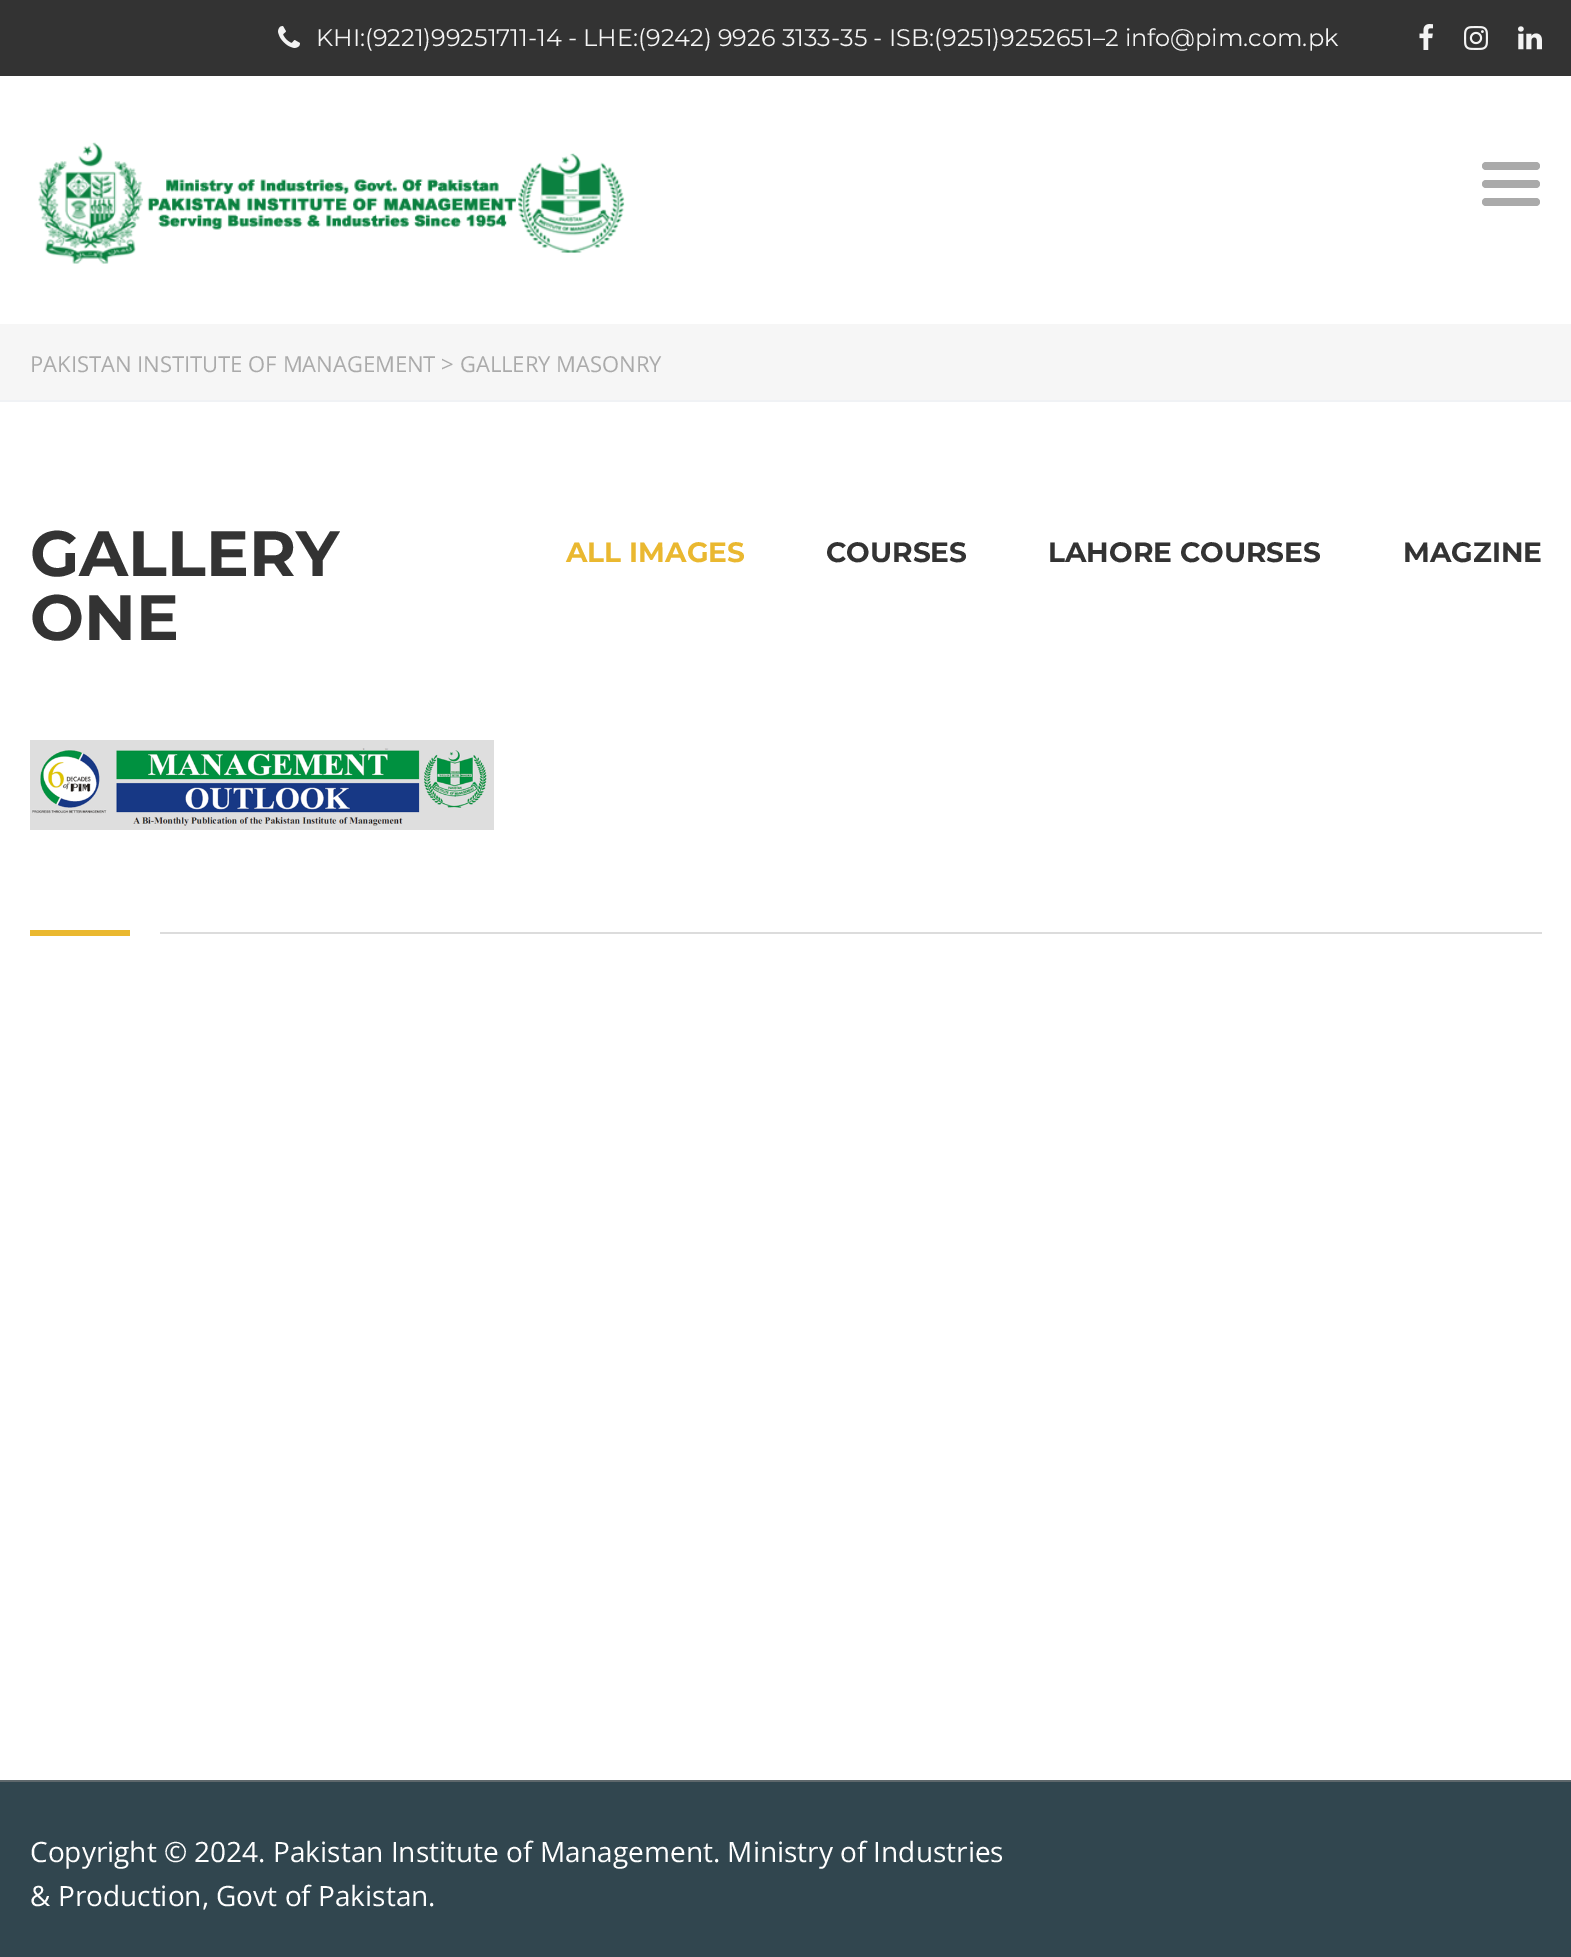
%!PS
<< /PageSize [1571 1957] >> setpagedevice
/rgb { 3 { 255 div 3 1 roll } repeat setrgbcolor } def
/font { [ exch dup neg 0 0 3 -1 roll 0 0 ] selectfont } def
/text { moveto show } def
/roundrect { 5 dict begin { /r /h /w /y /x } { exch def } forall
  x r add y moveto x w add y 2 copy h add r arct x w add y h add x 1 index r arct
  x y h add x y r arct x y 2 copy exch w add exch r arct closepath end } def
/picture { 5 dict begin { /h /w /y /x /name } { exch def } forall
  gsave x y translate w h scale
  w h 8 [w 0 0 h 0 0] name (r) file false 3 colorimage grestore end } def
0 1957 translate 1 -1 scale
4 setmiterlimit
255 255 255 rgb
0 0 1571 1957 rectfill
51 51 51 rgb
0 0 1571 76 rectfill
(img_01.rgb) 278 26 22 22 picture
(img_02.rgb) 1419 24 14 26 picture
(img_03.rgb) 1464 26 24 24 picture
(img_04.rgb) 1518 26 24 24 picture
(img_05.rgb) 38 142 587 122 picture
170 170 170 rgb
1482 162 58 8 4 roundrect fill
1482 180 58 8 4 roundrect fill
1482 198 58 8 4 roundrect fill
246 246 246 rgb
0 324 1571 76 rectfill
240 242 245 rgb
0 400 1571 2 rectfill
(img_06.rgb) 30 740 464 90 picture
234 184 48 rgb
30 930 100 6 rectfill
220 220 220 rgb
160 932 1382 2 rectfill
49 70 79 rgb
0 1782 1571 175 rectfill
94 103 107 rgb
0 1780 1571 2 rectfill
/Montserrat-Regular 24 font
244 244 244 rgb
(KHI:\(9221\)99251711-14 - LHE:\(9242\) 9926 3133-35 - ISB:\(9251\)9252651–2 info@pim.com.pk) 316 46 text
/OpenSans-Regular 22 font
170 170 170 rgb
(PAKISTAN INSTITUTE OF MANAGEMENT > GALLERY MASONRY) 30 372 text
/Montserrat-Bold 64 font
51 51 51 rgb
(GALLERY) 30 576 text
(ONE) 30 640 text
/Montserrat-Bold 28 font
234 184 48 rgb
(ALL IMAGES) 566 562 text
51 51 51 rgb
(COURSES) 826 562 text
(LAHORE COURSES) 1048 562 text
(MAGZINE) 1403 562 text
/OpenSans-Regular 28 font
255 255 255 rgb
(Copyright © 2024. Pakistan Institute of Management. Ministry of Industries) 30 1862 text
(& Production, Govt of Pakistan.) 30 1906 text
showpage
